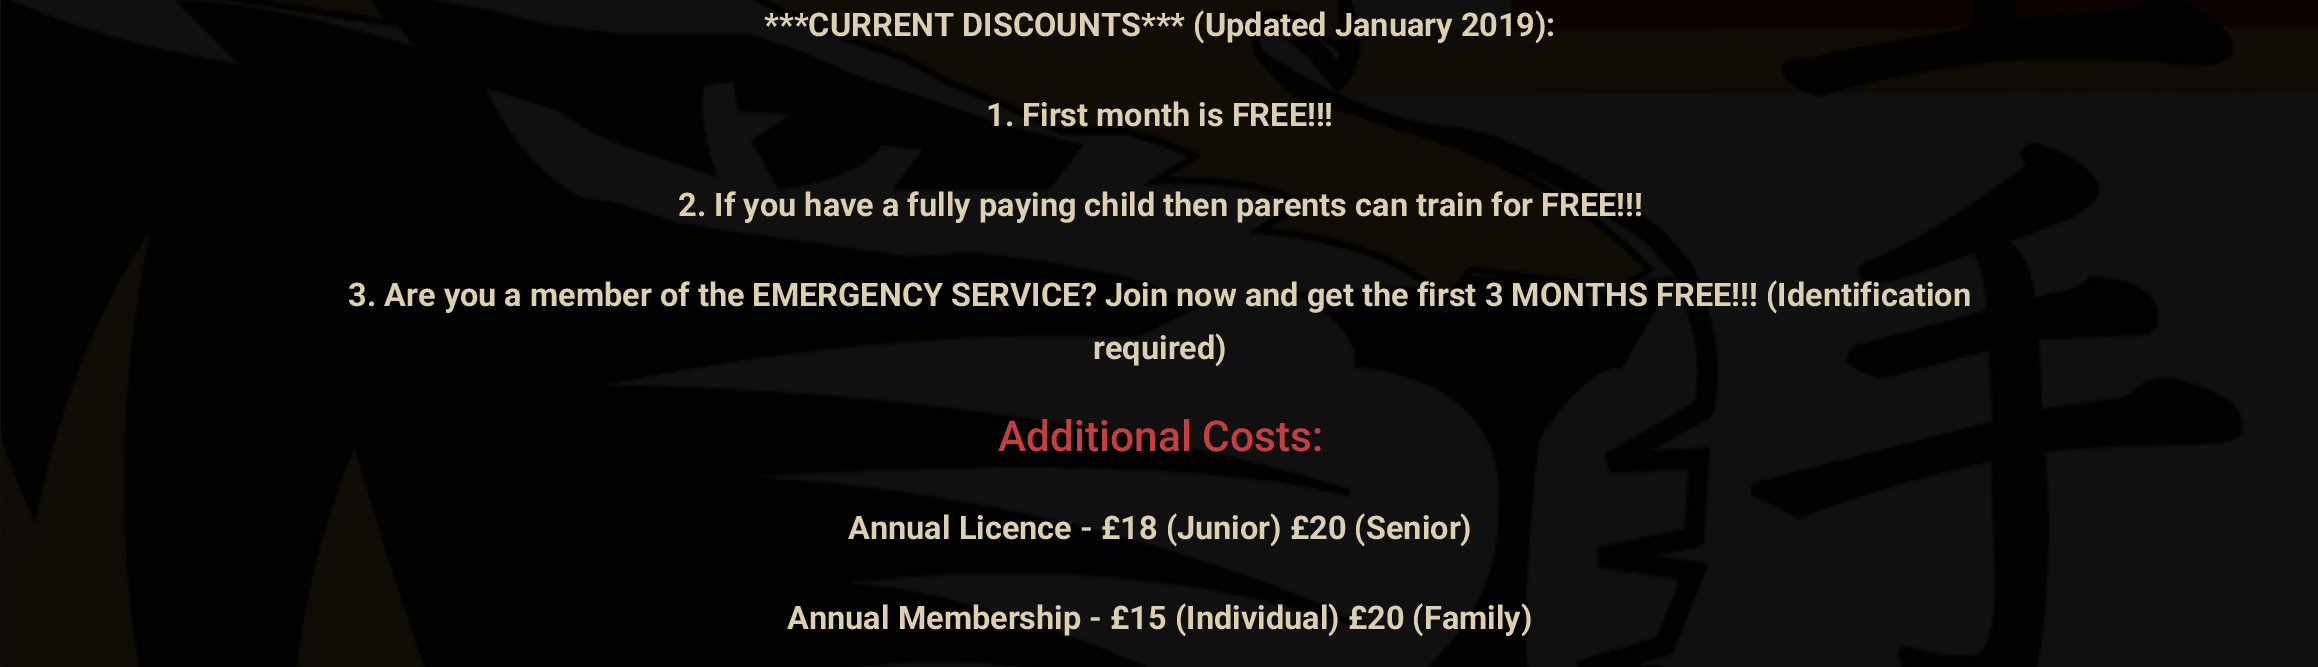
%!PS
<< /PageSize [2318 667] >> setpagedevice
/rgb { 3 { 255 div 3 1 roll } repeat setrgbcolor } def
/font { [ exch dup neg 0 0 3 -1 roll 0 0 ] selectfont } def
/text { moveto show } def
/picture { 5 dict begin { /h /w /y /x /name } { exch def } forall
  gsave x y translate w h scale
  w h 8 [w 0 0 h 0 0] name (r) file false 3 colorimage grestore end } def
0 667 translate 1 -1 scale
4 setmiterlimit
255 255 255 rgb
0 0 2318 667 rectfill
(img_01.rgb) 0 0 2318 667 picture
/Roboto-Bold 32.5 font
221 208 178 rgb
(***CURRENT DISCOUNTS*** \(Updated January 2019\):) 764 36 text
(1. First month is FREE!!!) 986 126 text
(2. If you have a fully paying child then parents can train for FREE!!!) 678 216 text
(3. Are you a member of the EMERGENCY SERVICE? Join now and get the first 3 MONTHS FREE!!! \(Identification) 348 306 text
(required\)) 1093 359 text
/Roboto-Medium 42.5 font
196 63 67 rgb
(Additional Costs:) 998 451 text
/Roboto-Bold 32.5 font
221 208 178 rgb
(Annual Licence - £18 \(Junior\) £20 \(Senior\)) 848 539 text
(Annual Membership - £15 \(Individual\) £20 \(Family\)) 787 629 text
showpage
